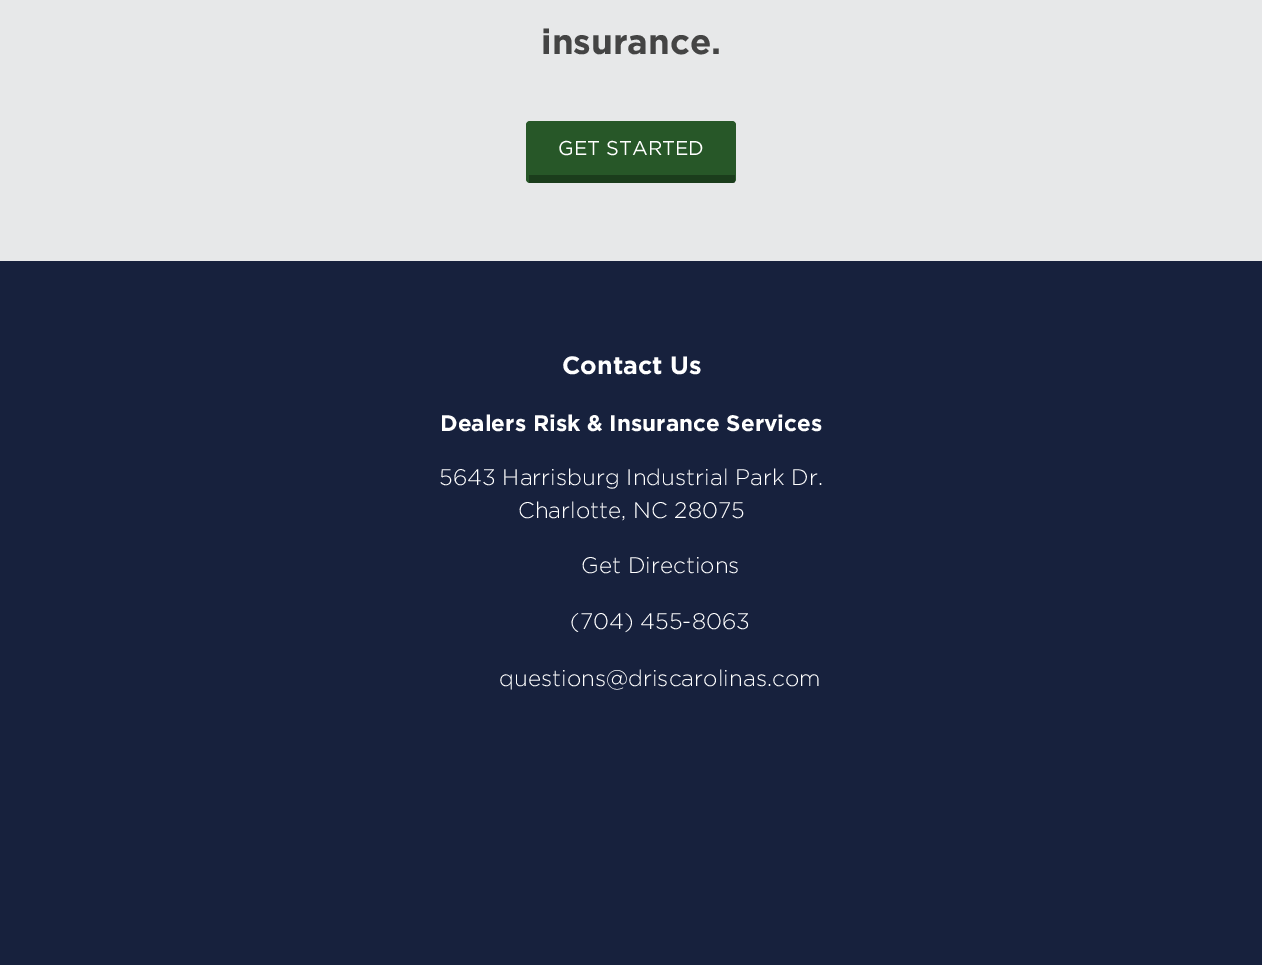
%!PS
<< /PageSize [1262 965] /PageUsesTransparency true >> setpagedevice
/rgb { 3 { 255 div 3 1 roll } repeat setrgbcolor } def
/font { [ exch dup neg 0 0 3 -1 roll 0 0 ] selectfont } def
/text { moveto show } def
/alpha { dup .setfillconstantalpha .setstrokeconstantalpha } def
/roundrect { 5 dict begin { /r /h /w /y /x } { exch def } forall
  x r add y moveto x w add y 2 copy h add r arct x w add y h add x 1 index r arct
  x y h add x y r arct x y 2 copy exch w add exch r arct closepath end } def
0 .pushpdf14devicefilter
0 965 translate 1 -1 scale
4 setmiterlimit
231 232 233 rgb
0 0 1262 965 rectfill
39 87 40 rgb
526 121 210 62 4 roundrect fill
0.3 alpha
0 0 0 rgb
529 175 206 8 rectfill
1 alpha
23 33 61 rgb
0 261 1262 704 rectfill
/Gotham-Bold 35 font
68 68 68 rgb
(insurance.) 541 54 text
/Gotham-Regular 20 font
255 255 255 rgb
(GET STARTED) 558 155 text
/Gotham-Bold 25 font
(Contact Us) 562 374 text
/Gotham-Bold 22.5 font
(Dealers Risk & Insurance Services) 440 431 text
/Gotham-Light 22.5 font
(5643 Harrisburg Industrial Park Dr.) 439 485 text
(Charlotte, NC 28075) 518 518 text
(Get Directions) 581 573 text
(\(704\) 455-8063) 570 629 text
(questions@driscarolinas.com) 499 686 text
.poppdf14devicefilter showpage
